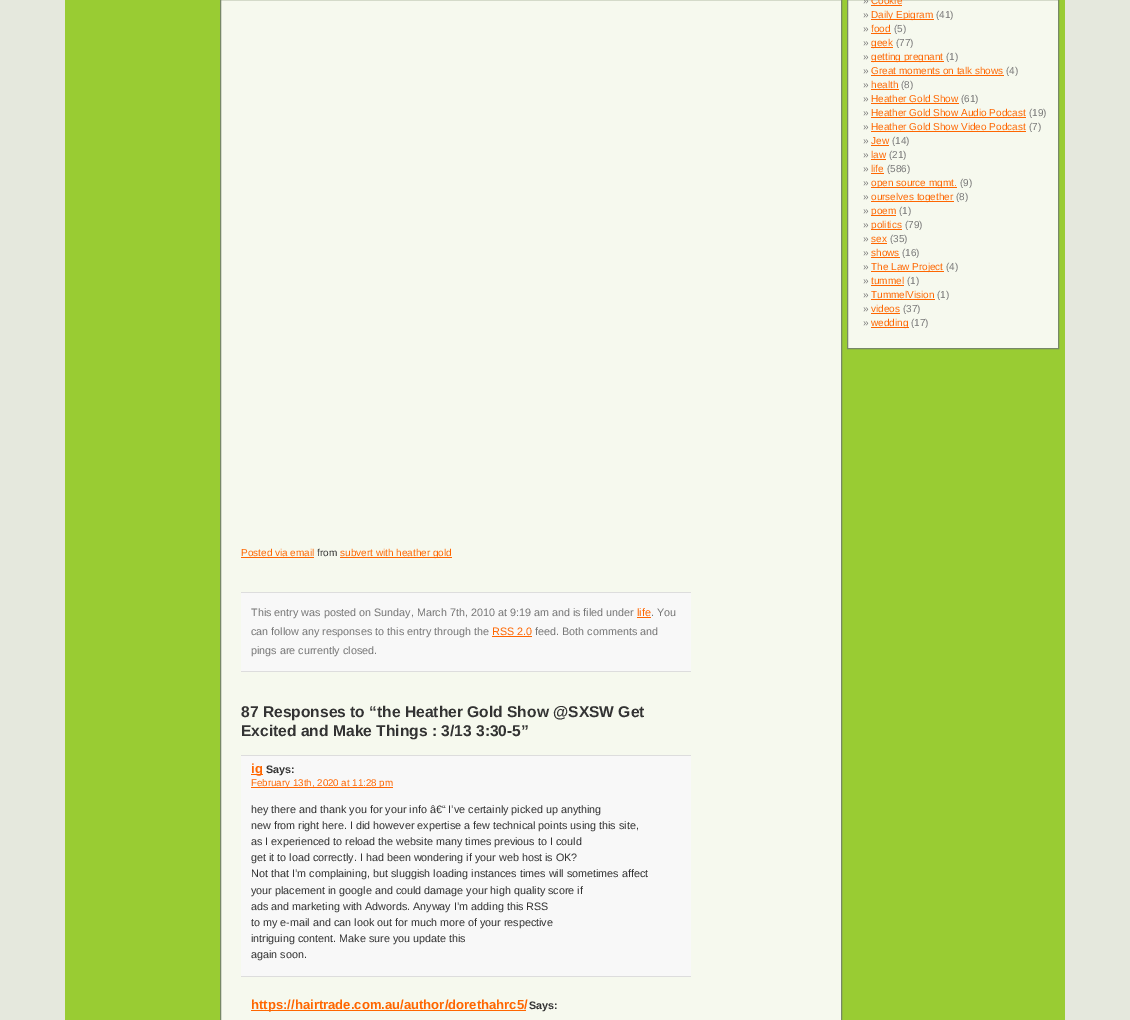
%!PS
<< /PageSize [1130 1020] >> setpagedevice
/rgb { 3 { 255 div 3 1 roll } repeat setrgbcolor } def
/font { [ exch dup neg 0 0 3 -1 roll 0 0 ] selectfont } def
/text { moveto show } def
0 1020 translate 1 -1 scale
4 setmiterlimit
229 232 221 rgb
0 0 1130 1020 rectfill
153 204 51 rgb
65 0 1000 1020 rectfill
246 249 238 rgb
847.5 -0.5 moveto 211 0 rlineto 0 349 rlineto -211 0 rlineto closepath gsave fill grestore
119 136 102 rgb
stroke
255 102 0 rgb
871 5 31 1 rectfill
871 19 63 1 rectfill
871 33 20 1 rectfill
871 47 22 1 rectfill
871 61 73 1 rectfill
871 75 133 1 rectfill
871 89 28 1 rectfill
871 103 88 1 rectfill
871 117 155 1 rectfill
871 131 155 1 rectfill
871 145 18 1 rectfill
871 159 15 1 rectfill
871 173 13 1 rectfill
871 187 86 1 rectfill
871 201 83 1 rectfill
871 215 25 1 rectfill
871 229 31 1 rectfill
871 243 16 1 rectfill
871 257 29 1 rectfill
871 271 73 1 rectfill
871 285 33 1 rectfill
871 299 64 1 rectfill
871 313 29 1 rectfill
871 327 38 1 rectfill
246 249 238 rgb
220.5 -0.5 moveto 621 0 rlineto 0 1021 rlineto -621 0 rlineto closepath gsave fill grestore
119 136 102 rgb
stroke
255 102 0 rgb
241 557 73 1 rectfill
340 557 112 1 rectfill
248 248 248 rgb
241 593 450 78 rectfill
221 221 221 rgb
241 592 450 1 rectfill
241 671 450 1 rectfill
255 102 0 rgb
637 617 14 1 rectfill
492 636 40 1 rectfill
248 248 248 rgb
241 756 450 220 rectfill
221 221 221 rgb
241 755 450 1 rectfill
241 976 450 1 rectfill
255 102 0 rgb
251 774 12 1 rectfill
251 787 142 1 rectfill
251 1010 275 1 rectfill
/LiberationSans-Regular 10 font
119 119 119 rgb
(») 863 4 text
255 102 0 rgb
(Cookie) 871 4 text
119 119 119 rgb
(») 863 18 text
255 102 0 rgb
(Daily Epigram) 871 18 text
119 119 119 rgb
(\(41\)) 936 18 text
(») 863 32 text
255 102 0 rgb
(food) 871 32 text
119 119 119 rgb
(\(5\)) 894 32 text
(») 863 46 text
255 102 0 rgb
(geek) 871 46 text
119 119 119 rgb
(\(77\)) 896 46 text
(») 863 60 text
255 102 0 rgb
(getting pregnant) 871 60 text
119 119 119 rgb
(\(1\)) 946 60 text
(») 863 74 text
255 102 0 rgb
(Great moments on talk shows) 871 74 text
119 119 119 rgb
(\(4\)) 1006 74 text
(») 863 88 text
255 102 0 rgb
(health) 871 88 text
119 119 119 rgb
(\(8\)) 901 88 text
(») 863 102 text
255 102 0 rgb
(Heather Gold Show) 871 102 text
119 119 119 rgb
(\(61\)) 961 102 text
(») 863 116 text
255 102 0 rgb
(Heather Gold Show Audio Podcast) 871 116 text
119 119 119 rgb
(\(19\)) 1029 116 text
(») 863 130 text
255 102 0 rgb
(Heather Gold Show Video Podcast) 871 130 text
119 119 119 rgb
(\(7\)) 1029 130 text
(») 863 144 text
255 102 0 rgb
(Jew) 871 144 text
119 119 119 rgb
(\(14\)) 892 144 text
(») 863 158 text
255 102 0 rgb
(law) 871 158 text
119 119 119 rgb
(\(21\)) 889 158 text
(») 863 172 text
255 102 0 rgb
(life) 871 172 text
119 119 119 rgb
(\(586\)) 887 172 text
(») 863 186 text
255 102 0 rgb
(open source mgmt.) 871 186 text
119 119 119 rgb
(\(9\)) 960 186 text
(») 863 200 text
255 102 0 rgb
(ourselves together) 871 200 text
119 119 119 rgb
(\(8\)) 956 200 text
(») 863 214 text
255 102 0 rgb
(poem) 871 214 text
119 119 119 rgb
(\(1\)) 899 214 text
(») 863 228 text
255 102 0 rgb
(politics) 871 228 text
119 119 119 rgb
(\(79\)) 905 228 text
(») 863 242 text
255 102 0 rgb
(sex) 871 242 text
119 119 119 rgb
(\(35\)) 890 242 text
(») 863 256 text
255 102 0 rgb
(shows) 871 256 text
119 119 119 rgb
(\(16\)) 902 256 text
(») 863 270 text
255 102 0 rgb
(The Law Project) 871 270 text
119 119 119 rgb
(\(4\)) 946 270 text
(») 863 284 text
255 102 0 rgb
(tummel) 871 284 text
119 119 119 rgb
(\(1\)) 907 284 text
(») 863 298 text
255 102 0 rgb
(TummelVision) 871 298 text
119 119 119 rgb
(\(1\)) 937 298 text
(») 863 312 text
255 102 0 rgb
(videos) 871 312 text
119 119 119 rgb
(\(37\)) 903 312 text
(») 863 326 text
255 102 0 rgb
(wedding) 871 326 text
119 119 119 rgb
(\(17\)) 911 326 text
255 102 0 rgb
(Posted via email) 241 556 text
51 51 51 rgb
(from) 317 556 text
255 102 0 rgb
(subvert with heather gold) 340 556 text
/LiberationSans-Regular 10.8 font
119 119 119 rgb
(This entry was posted on Sunday, March 7th, 2010 at 9:19 am and is filed under) 251 616 text
255 102 0 rgb
(life) 637 616 text
119 119 119 rgb
(. You) 651 616 text
(can follow any responses to this entry through the) 251 635 text
255 102 0 rgb
(RSS 2.0) 492 635 text
119 119 119 rgb
(feed. Both comments and) 535 635 text
(pings are currently closed.) 251 654 text
/LiberationSans-Bold 15.6 font
51 51 51 rgb
(87 Responses to “the Heather Gold Show @SXSW Get) 241 717 text
(Excited and Make Things : 3/13 3:30-5”) 241 736 text
/LiberationSans-Bold 13.1 font
255 102 0 rgb
(ig) 251 773 text
/LiberationSans-Bold 10.8 font
51 51 51 rgb
(Says:) 266 773 text
/LiberationSans-Regular 9.75 font
255 102 0 rgb
(February 13th, 2020 at 11:28 pm) 251 786 text
/LiberationSans-Regular 10.8 font
51 51 51 rgb
(hey there and thank you for your info â€“ I’ve certainly picked up anything) 251 813 text
(new from right here. I did however expertise a few technical points using this site,) 251 829 text
(as I experienced to reload the website many times previous to I could) 251 845 text
(get it to load correctly. I had been wondering if your web host is OK?) 251 861 text
(Not that I’m complaining, but sluggish loading instances times will sometimes affect) 251 877 text
(your placement in google and could damage your high quality score if) 251 894 text
(ads and marketing with Adwords. Anyway I’m adding this RSS) 251 910 text
(to my e-mail and can look out for much more of your respective) 251 926 text
(intriguing content. Make sure you update this) 251 942 text
(again soon.) 251 958 text
/LiberationSans-Bold 13.1 font
255 102 0 rgb
(https://hairtrade.com.au/author/dorethahrc5/) 251 1009 text
/LiberationSans-Bold 10.8 font
51 51 51 rgb
(Says:) 529 1009 text
showpage
